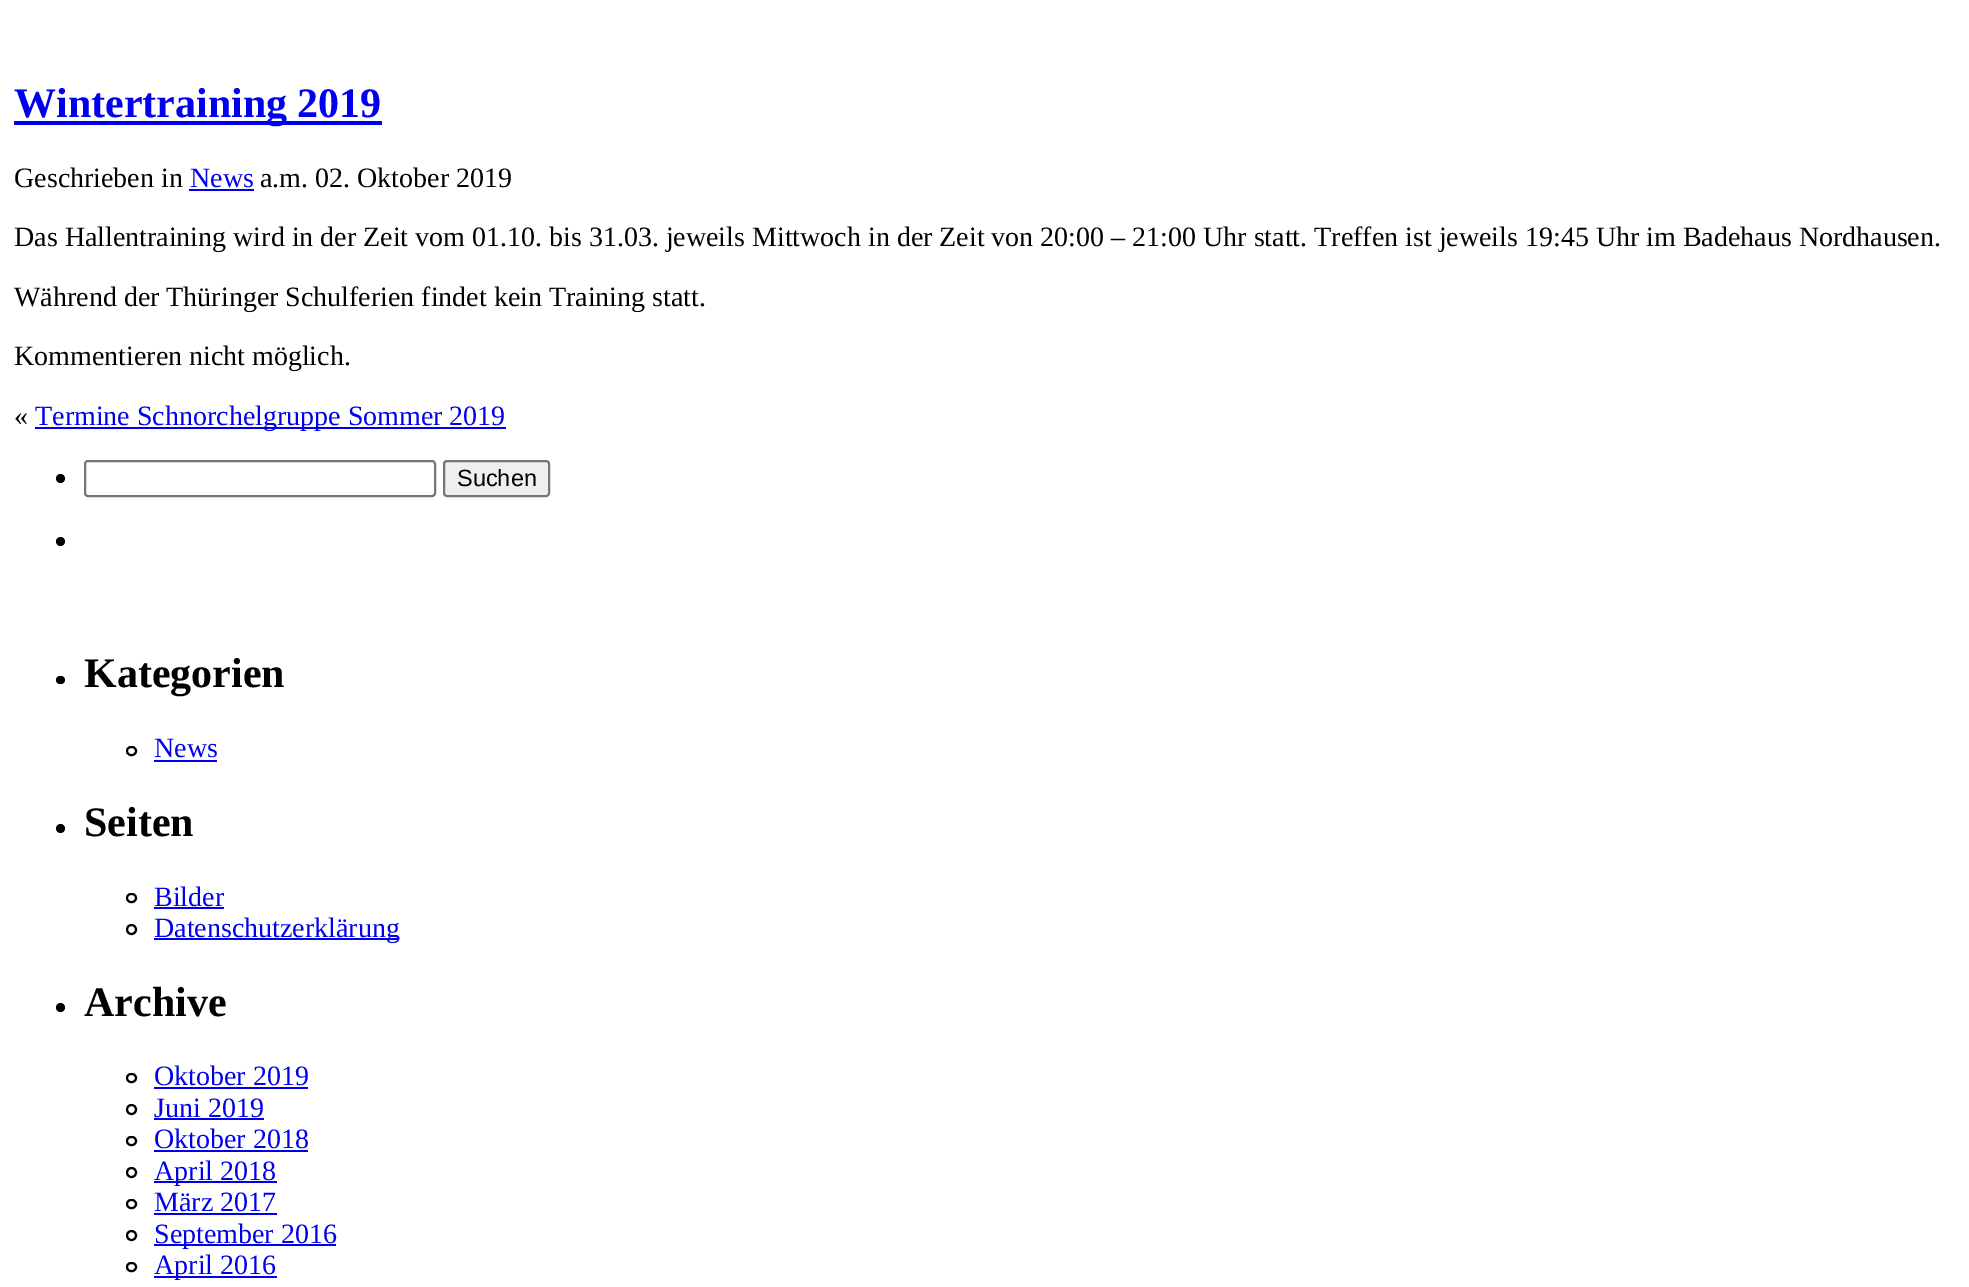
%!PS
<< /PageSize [1969 1287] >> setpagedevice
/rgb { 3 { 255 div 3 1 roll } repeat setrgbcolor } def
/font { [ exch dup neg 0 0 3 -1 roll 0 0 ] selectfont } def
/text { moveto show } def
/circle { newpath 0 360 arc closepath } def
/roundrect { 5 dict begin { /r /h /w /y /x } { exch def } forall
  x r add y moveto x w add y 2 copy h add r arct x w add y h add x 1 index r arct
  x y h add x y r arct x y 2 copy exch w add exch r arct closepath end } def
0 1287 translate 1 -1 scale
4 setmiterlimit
255 255 255 rgb
0 0 1969 1287 rectfill
0 0 238 rgb
14 121 368 4 rectfill
189 189 65 2 rectfill
35 427 471 2 rectfill
0 0 0 rgb
60.5 478.5 4.5 circle fill
118 118 118 rgb
2 setlinewidth
85 461 350 35 3 roundrect stroke
239 239 239 rgb
444 461 105 35 3 roundrect gsave fill grestore
118 118 118 rgb
stroke
0 0 0 rgb
60.5 541.5 4.5 circle fill
56 676 9 8 4 roundrect fill
127 747 9 8 4 roundrect stroke
0 0 238 rgb
154 760 63 2 rectfill
0 0 0 rgb
60.5 828.5 4.5 circle fill
127 894 9 8 4 roundrect stroke
0 0 238 rgb
154 907 70 2 rectfill
0 0 0 rgb
131.5 929.5 4.5 circle stroke
0 0 238 rgb
154 938 245 2 rectfill
0 0 0 rgb
60.5 1007.5 4.5 circle fill
127 1074 9 8 4 roundrect stroke
0 0 238 rgb
154 1087 154 2 rectfill
0 0 0 rgb
131.5 1109.5 4.5 circle stroke
0 0 238 rgb
154 1118 110 2 rectfill
0 0 0 rgb
127 1137 9 8 4 roundrect stroke
0 0 238 rgb
154 1150 154 2 rectfill
0 0 0 rgb
131.5 1172.5 4.5 circle stroke
0 0 238 rgb
154 1181 123 2 rectfill
0 0 0 rgb
127 1200 9 8 4 roundrect stroke
0 0 238 rgb
154 1213 123 2 rectfill
0 0 0 rgb
131.5 1235.5 4.5 circle stroke
0 0 238 rgb
154 1244 182 2 rectfill
0 0 0 rgb
127 1263 9 8 4 roundrect stroke
0 0 238 rgb
154 1276 123 2 rectfill
/LiberationSerif-Bold 42 font
(Wintertraining 2019) 14 117 text
/LiberationSerif-Regular 28 font
0 0 0 rgb
(Geschrieben in) 14 187 text
0 0 238 rgb
(News) 190 187 text
0 0 0 rgb
(a.m. 02. Oktober 2019) 260 187 text
(Das Hallentraining wird in der Zeit vom 01.10. bis 31.03. jeweils Mittwoch in der Zeit von 20:00 – 21:00 Uhr statt. Treffen ist jeweils 19:45 Uhr im Badehaus Nordhausen.) 14 246 text
(Während der Thüringer Schulferien findet kein Training statt.) 14 306 text
(Kommentieren nicht möglich.) 14 365 text
(«) 14 425 text
0 0 238 rgb
(Termine Schnorchelgruppe Sommer 2019) 35 425 text
/LiberationSans-Regular 23.5 font
0 0 0 rgb
(Suchen) 457 486 text
/LiberationSerif-Bold 42 font
(Kategorien) 84 687 text
/LiberationSerif-Regular 28 font
0 0 238 rgb
(News) 154 757 text
/LiberationSerif-Bold 42 font
0 0 0 rgb
(Seiten) 84 836 text
/LiberationSerif-Regular 28 font
0 0 238 rgb
(Bilder) 154 906 text
(Datenschutzerklärung) 154 937 text
/LiberationSerif-Bold 42 font
0 0 0 rgb
(Archive) 84 1016 text
/LiberationSerif-Regular 28 font
0 0 238 rgb
(Oktober 2019) 154 1085 text
(Juni 2019) 154 1117 text
(Oktober 2018) 154 1148 text
(April 2018) 154 1180 text
(März 2017) 154 1211 text
(September 2016) 154 1243 text
(April 2016) 154 1274 text
showpage
